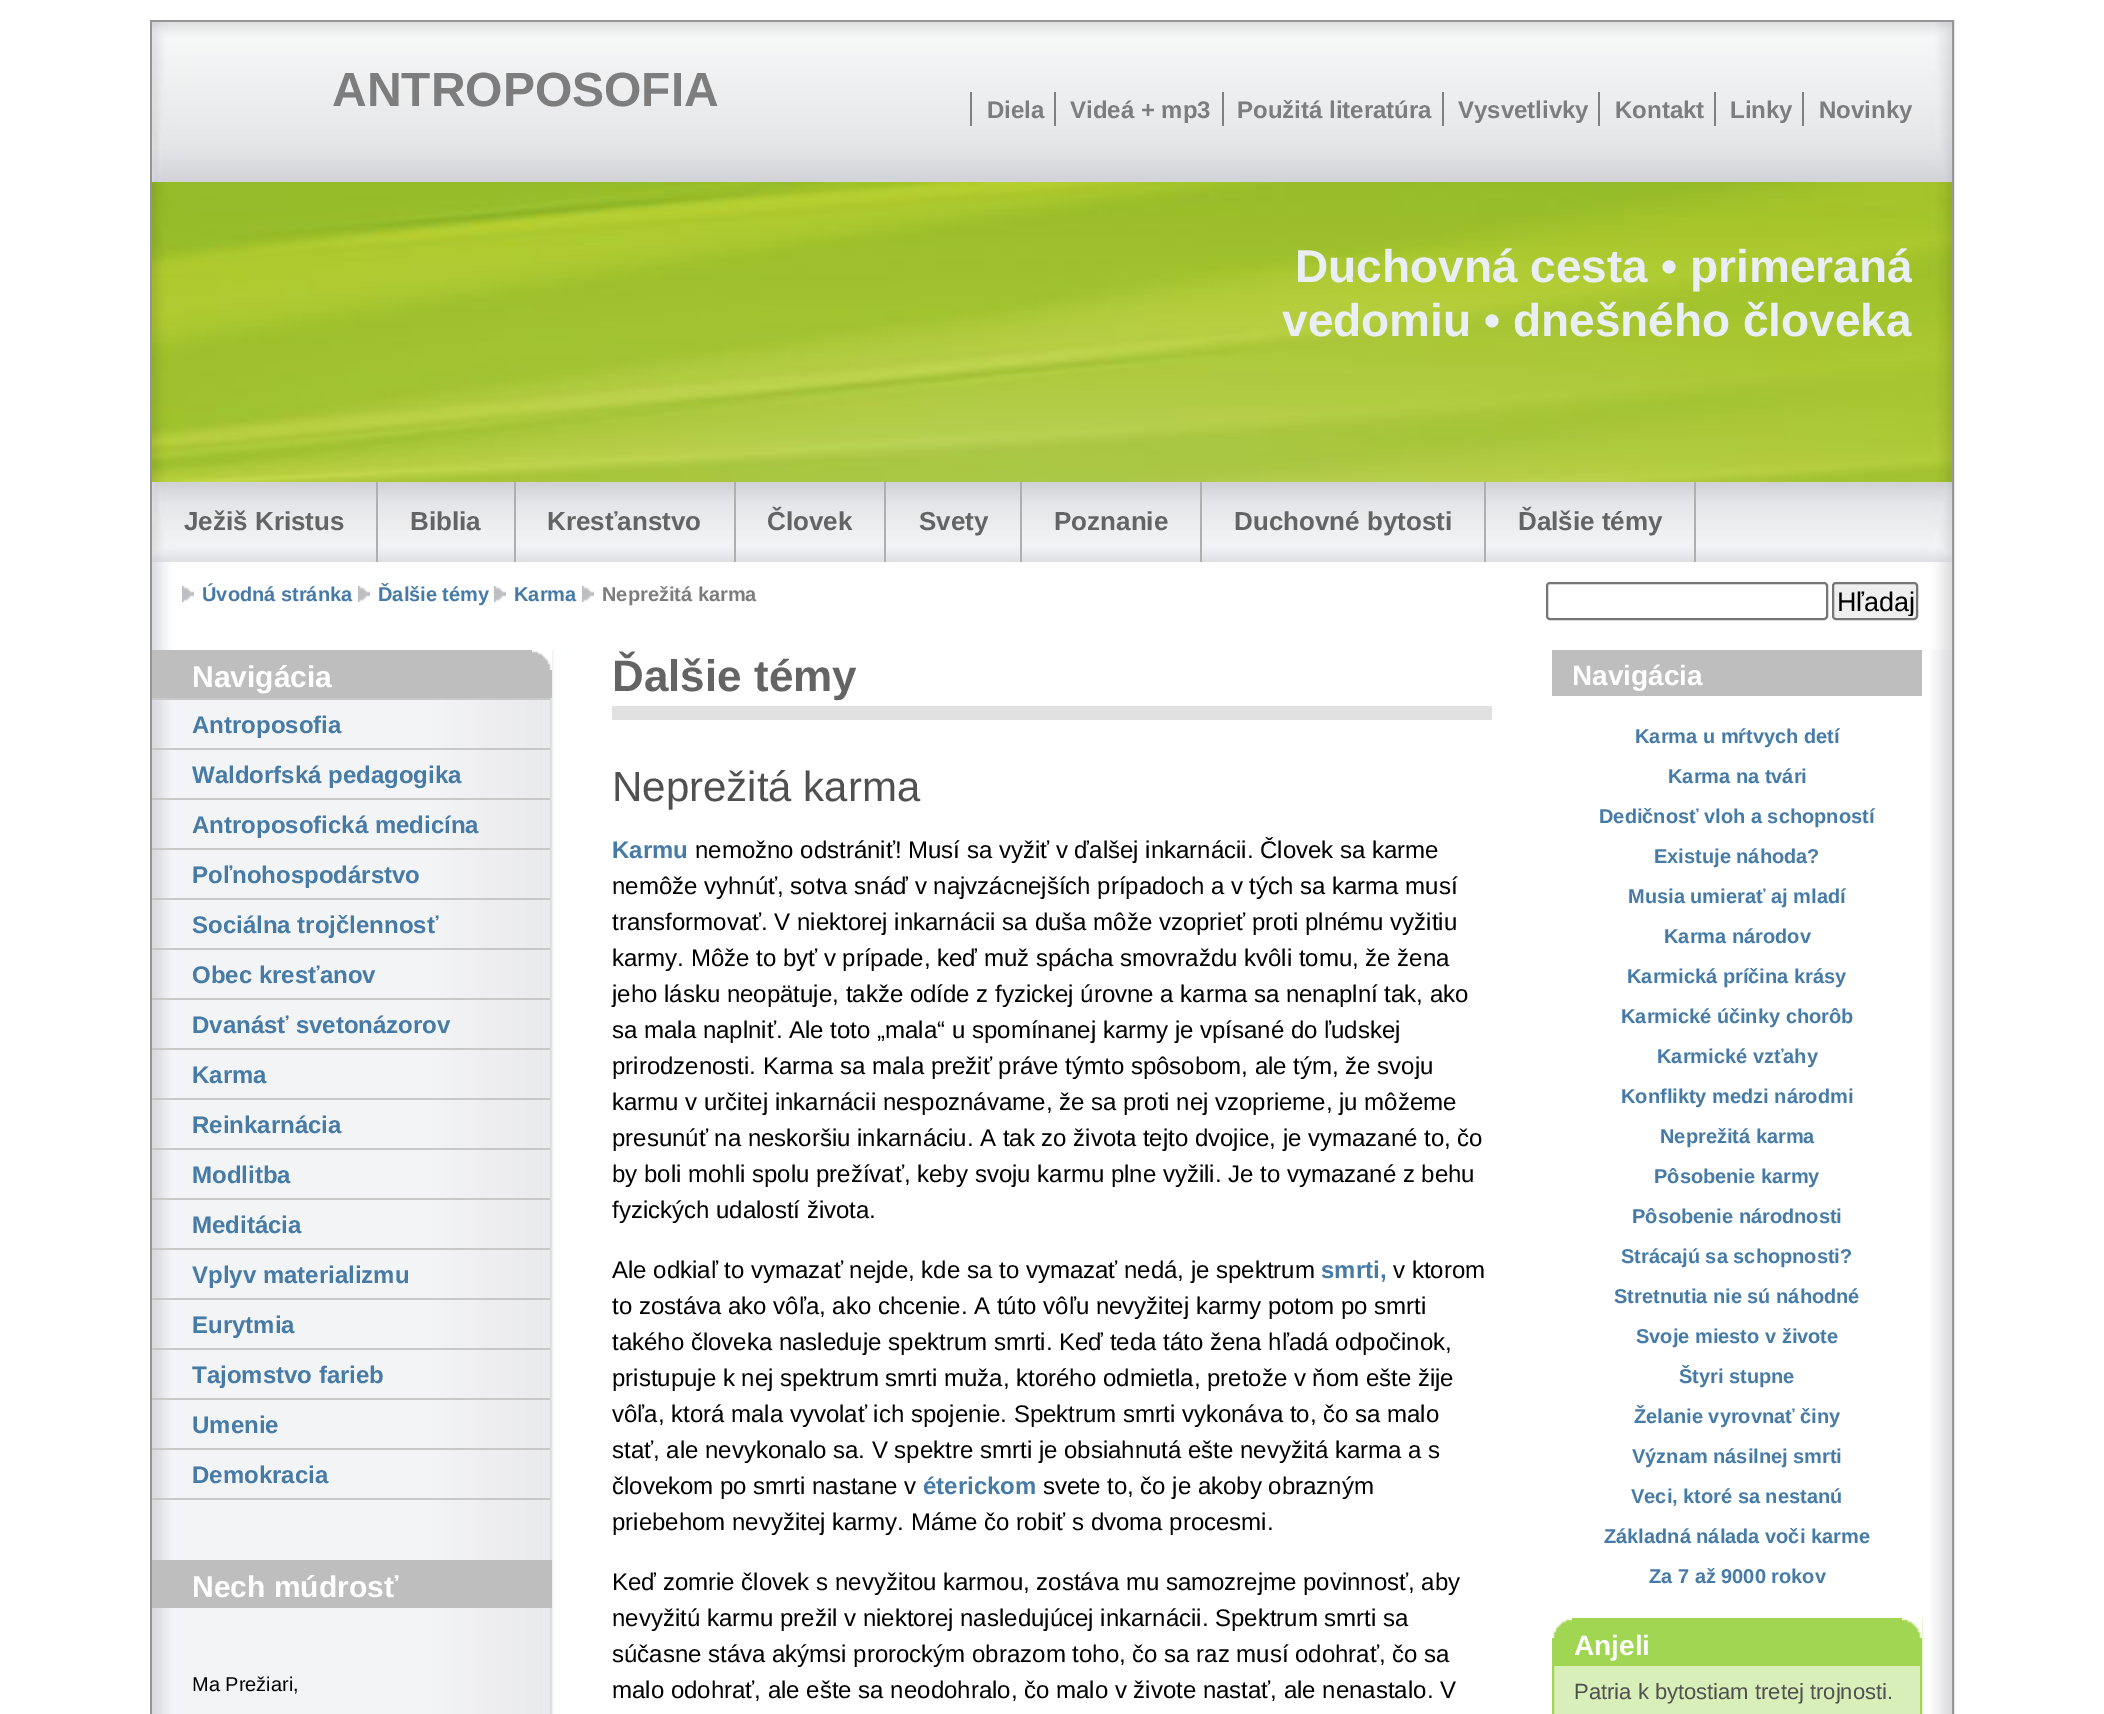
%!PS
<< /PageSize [2104 1714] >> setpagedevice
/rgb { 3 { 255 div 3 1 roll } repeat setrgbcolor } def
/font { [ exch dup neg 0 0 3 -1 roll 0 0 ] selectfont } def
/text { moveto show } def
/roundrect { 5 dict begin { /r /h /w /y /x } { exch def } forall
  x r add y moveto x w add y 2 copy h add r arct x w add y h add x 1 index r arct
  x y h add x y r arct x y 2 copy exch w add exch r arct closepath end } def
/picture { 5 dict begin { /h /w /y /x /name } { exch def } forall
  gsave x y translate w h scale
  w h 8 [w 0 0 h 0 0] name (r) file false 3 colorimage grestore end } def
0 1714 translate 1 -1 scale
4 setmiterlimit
255 255 255 rgb
0 0 2104 1714 rectfill
150 150 150 rgb
2 setlinewidth
151 21 1802 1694 rectstroke
(img_01.rgb) 152 22 1800 160 picture
128 128 128 rgb
970 92 2 34 rectfill
1054 92 2 34 rectfill
1222 92 2 34 rectfill
1442 92 2 34 rectfill
1598 92 2 34 rectfill
1714 92 2 34 rectfill
1802 92 2 34 rectfill
(img_02.rgb) 152 182 1800 300 picture
(img_03.rgb) 152 482 1800 80 picture
175 175 175 rgb
376 482 2 80 rectfill
514 482 2 80 rectfill
734 482 2 80 rectfill
884 482 2 80 rectfill
1020 482 2 80 rectfill
1200 482 2 80 rectfill
1484 482 2 80 rectfill
1694 482 2 80 rectfill
(img_04.rgb) 152 562 1800 88 picture
(img_05.rgb) 182 586 12 16 picture
(img_05.rgb) 358 586 12 16 picture
(img_05.rgb) 494 586 12 16 picture
(img_05.rgb) 582 586 12 16 picture
118 118 118 rgb
1547 583 280 36 3 roundrect stroke
239 239 239 rgb
1833 583 84 36 3 roundrect gsave fill grestore
118 118 118 rgb
stroke
(img_06.rgb) 152 650 1800 1064 picture
190 190 190 rgb
152 650 400 48 rectfill
(img_07.rgb) 532 650 20 20 picture
200 200 200 rgb
152 1498 398 2 rectfill
152 698 398 2 rectfill
152 748 398 2 rectfill
152 798 398 2 rectfill
152 848 398 2 rectfill
152 898 398 2 rectfill
152 948 398 2 rectfill
152 998 398 2 rectfill
152 1048 398 2 rectfill
152 1098 398 2 rectfill
152 1148 398 2 rectfill
152 1198 398 2 rectfill
152 1248 398 2 rectfill
152 1298 398 2 rectfill
152 1348 398 2 rectfill
152 1398 398 2 rectfill
152 1448 398 2 rectfill
190 190 190 rgb
152 1560 400 48 rectfill
225 225 225 rgb
612 706 880 14 rectfill
190 190 190 rgb
1552 650 370 46 rectfill
217 239 185 rgb
1554 1666 366 48 rectfill
160 214 81 rgb
1553 1619 368 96 rectstroke
1554 1620 366 46 rectfill
(img_08.rgb) 1552 1618 20 20 picture
(img_09.rgb) 1902 1618 20 20 picture
/LiberationSans-Bold 48 font
125 125 125 rgb
(ANTROPOSOFIA) 332 106 text
/LiberationSans-Bold 24 font
(Diela) 987 118 text
(Videá + mp3) 1070 118 text
(Použitá literatúra) 1237 118 text
(Vysvetlivky) 1458 118 text
(Kontakt) 1615 118 text
(Linky) 1730 118 text
(Novinky) 1819 118 text
/LiberationSans-Bold 46 font
234 239 247 rgb
(Duchovná cesta) 1295 282 text
gsave
1212 240 700 240 rectclip
(• primeraná) 1661 282 text
(vedomiu • dnešného človeka) 1282 336 text
grestore
/LiberationSans-Bold 26 font
100 100 100 rgb
(Ježiš Kristus) 184 530 text
(Biblia) 410 530 text
(Kresťanstvo) 547 530 text
(Človek) 767 530 text
(Svety) 919 530 text
(Poznanie) 1054 530 text
(Duchovné bytosti) 1234 530 text
(Ďalšie témy) 1518 530 text
/LiberationSans-Bold 20 font
70 122 167 rgb
(Úvodná stránka) 202 601 text
(Ďalšie témy) 378 601 text
(Karma) 514 601 text
125 125 125 rgb
(Neprežitá karma) 602 601 text
gsave
1836 586 78 30 rectclip
/LiberationSans-Regular 27 font
0 0 0 rgb
(Hľadaj) 1837 611 text
grestore
/LiberationSans-Bold 30 font
255 255 255 rgb
(Navigácia) 192 687 text
/LiberationSans-Bold 24 font
70 122 167 rgb
(Antroposofia) 192 733 text
(Waldorfská pedagogika) 192 783 text
(Antroposofická medicína) 192 833 text
(Poľnohospodárstvo) 192 883 text
(Sociálna trojčlennosť) 192 933 text
(Obec kresťanov) 192 983 text
(Dvanásť svetonázorov) 192 1033 text
(Karma) 192 1083 text
(Reinkarnácia) 192 1133 text
(Modlitba) 192 1183 text
(Meditácia) 192 1233 text
(Vplyv materializmu) 192 1283 text
(Eurytmia) 192 1333 text
(Tajomstvo farieb) 192 1383 text
(Umenie) 192 1433 text
(Demokracia) 192 1483 text
/LiberationSans-Bold 30 font
255 255 255 rgb
(Nech múdrosť) 192 1597 text
/LiberationSans-Regular 20 font
0 0 0 rgb
(Ma Prežiari,) 192 1691 text
/LiberationSans-Bold 44 font
100 100 100 rgb
(Ďalšie témy) 612 691 text
/LiberationSans-Regular 42 font
80 80 80 rgb
(Neprežitá karma) 612 801 text
/LiberationSans-Bold 24 font
70 122 167 rgb
(Karmu) 612 858 text
/LiberationSans-Regular 24 font
0 0 0 rgb
(nemožno odstrániť! Musí sa vyžiť v ďalšej inkarnácii. Človek sa karme) 695 858 text
(nemôže vyhnúť, sotva snáď v najvzácnejších prípadoch a v tých sa karma musí) 612 894 text
(transformovať. V niektorej inkarnácii sa duša môže vzoprieť proti plnému vyžitiu) 612 930 text
(karmy. Môže to byť v prípade, keď muž spácha smovraždu kvôli tomu, že žena) 612 966 text
(jeho lásku neopätuje, takže odíde z fyzickej úrovne a karma sa nenaplní tak, ako) 612 1002 text
(sa mala naplniť. Ale toto „mala“ u spomínanej karmy je vpísané do ľudskej) 612 1038 text
(prirodzenosti. Karma sa mala prežiť práve týmto spôsobom, ale tým, že svoju) 612 1074 text
(karmu v určitej inkarnácii nespoznávame, že sa proti nej vzoprieme, ju môžeme) 612 1110 text
(presunúť na neskoršiu inkarnáciu. A tak zo života tejto dvojice, je vymazané to, čo) 612 1146 text
(by boli mohli spolu prežívať, keby svoju karmu plne vyžili. Je to vymazané z behu) 612 1182 text
(fyzických udalostí života.) 612 1218 text
(Ale odkiaľ to vymazať nejde, kde sa to vymazať nedá, je spektrum) 612 1278 text
/LiberationSans-Bold 24 font
70 122 167 rgb
(smrti,) 1321 1278 text
/LiberationSans-Regular 24 font
0 0 0 rgb
(v ktorom) 1393 1278 text
(to zostáva ako vôľa, ako chcenie. A túto vôľu nevyžitej karmy potom po smrti) 612 1314 text
(takého človeka nasleduje spektrum smrti. Keď teda táto žena hľadá odpočinok,) 612 1350 text
(pristupuje k nej spektrum smrti muža, ktorého odmietla, pretože v ňom ešte žije) 612 1386 text
(vôľa, ktorá mala vyvolať ich spojenie. Spektrum smrti vykonáva to, čo sa malo) 612 1422 text
(stať, ale nevykonalo sa. V spektre smrti je obsiahnutá ešte nevyžitá karma a s) 612 1458 text
(človekom po smrti nastane v) 612 1494 text
/LiberationSans-Bold 24 font
70 122 167 rgb
(éterickom) 923 1494 text
/LiberationSans-Regular 24 font
0 0 0 rgb
(svete to, čo je akoby obrazným) 1043 1494 text
(priebehom nevyžitej karmy. Máme čo robiť s dvoma procesmi.) 612 1530 text
(Keď zomrie človek s nevyžitou karmou, zostáva mu samozrejme povinnosť, aby) 612 1590 text
(nevyžitú karmu prežil v niektorej nasledujúcej inkarnácii. Spektrum smrti sa) 612 1626 text
(súčasne stáva akýmsi prorockým obrazom toho, čo sa raz musí odohrať, čo sa) 612 1662 text
(malo odohrať, ale ešte sa neodohralo, čo malo v živote nastať, ale nenastalo. V) 612 1698 text
/LiberationSans-Bold 28 font
255 255 255 rgb
(Navigácia) 1572 685 text
/LiberationSans-Bold 20 font
70 122 167 rgb
(Karma u mŕtvych detí) 1635 743 text
(Karma na tvári) 1668 783 text
(Dedičnosť vloh a schopností) 1599 823 text
(Existuje náhoda?) 1654 863 text
(Musia umierať aj mladí) 1628 903 text
(Karma národov) 1664 943 text
(Karmická príčina krásy) 1627 983 text
(Karmické účinky chorôb) 1621 1023 text
(Karmické vzťahy) 1657 1063 text
(Konflikty medzi národmi) 1621 1103 text
(Neprežitá karma) 1660 1143 text
(Pôsobenie karmy) 1654 1183 text
(Pôsobenie národnosti) 1632 1223 text
(Strácajú sa schopnosti?) 1621 1263 text
(Stretnutia nie sú náhodné) 1614 1303 text
(Svoje miesto v živote) 1636 1343 text
(Štyri stupne) 1679 1383 text
(Želanie vyrovnať činy) 1634 1423 text
(Význam násilnej smrti) 1632 1463 text
(Veci, ktoré sa nestanú) 1631 1503 text
(Základná nálada voči karme) 1604 1543 text
(Za 7 až 9000 rokov) 1649 1583 text
/LiberationSans-Bold 28 font
255 255 255 rgb
(Anjeli) 1574 1655 text
/LiberationSans-Regular 22 font
80 80 80 rgb
(Patria k bytostiam tretej trojnosti.) 1574 1699 text
showpage
